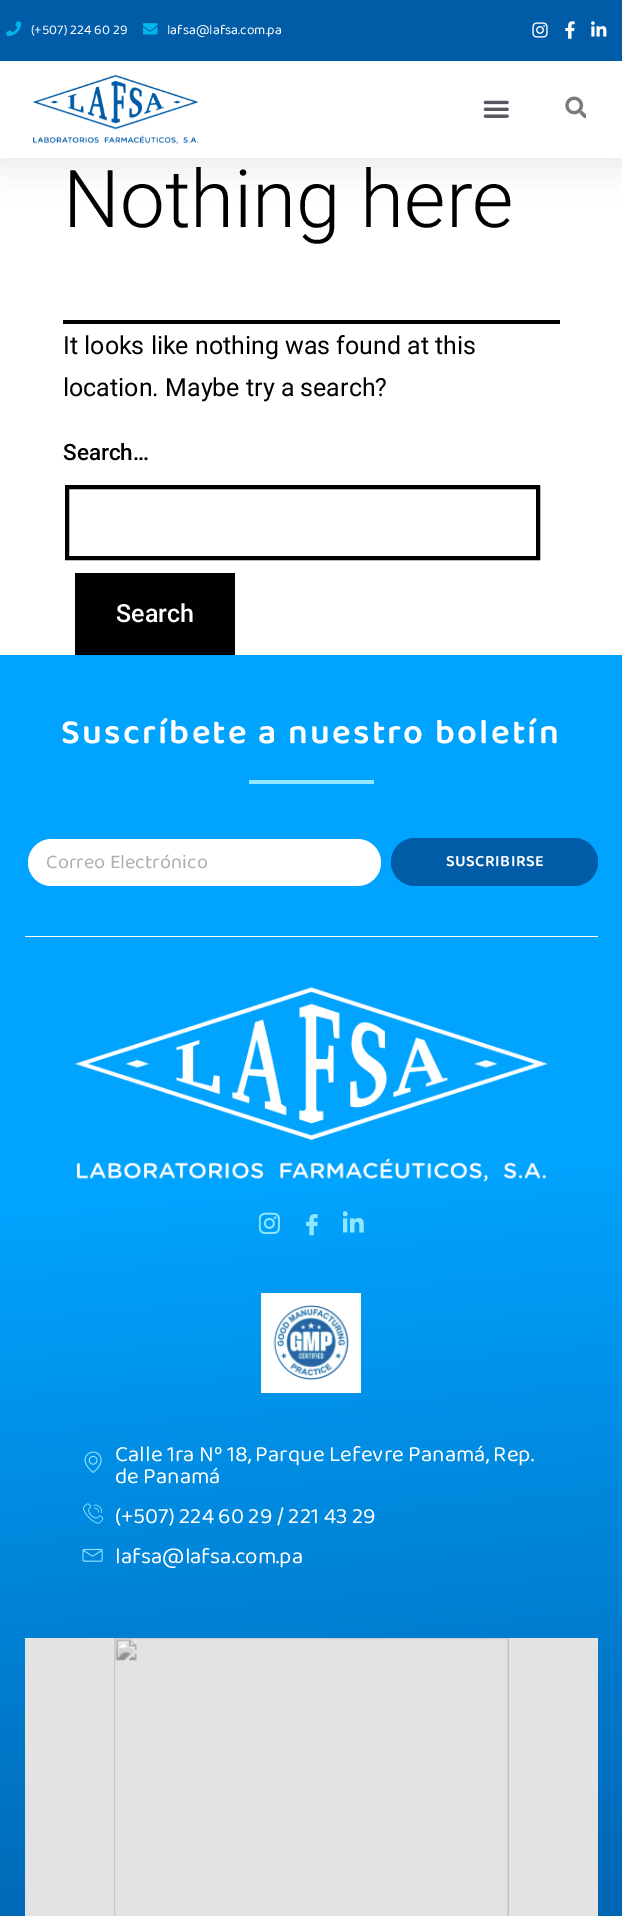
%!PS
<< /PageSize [622 1916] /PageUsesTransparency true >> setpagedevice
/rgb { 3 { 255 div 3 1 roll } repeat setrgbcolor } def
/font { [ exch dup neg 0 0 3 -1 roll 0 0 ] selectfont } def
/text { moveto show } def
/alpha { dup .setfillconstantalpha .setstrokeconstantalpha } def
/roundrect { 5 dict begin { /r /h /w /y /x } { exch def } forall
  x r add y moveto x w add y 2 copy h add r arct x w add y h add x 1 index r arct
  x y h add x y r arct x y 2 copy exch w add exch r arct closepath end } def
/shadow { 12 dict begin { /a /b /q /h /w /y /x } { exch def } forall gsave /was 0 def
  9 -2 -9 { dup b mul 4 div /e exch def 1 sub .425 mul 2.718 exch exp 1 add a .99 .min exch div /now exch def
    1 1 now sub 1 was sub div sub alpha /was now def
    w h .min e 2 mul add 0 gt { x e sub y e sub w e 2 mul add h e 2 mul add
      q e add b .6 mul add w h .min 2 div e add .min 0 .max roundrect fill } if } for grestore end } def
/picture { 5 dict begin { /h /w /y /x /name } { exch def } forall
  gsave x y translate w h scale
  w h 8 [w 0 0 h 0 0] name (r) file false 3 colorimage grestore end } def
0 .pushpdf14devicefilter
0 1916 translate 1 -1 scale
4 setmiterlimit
255 255 255 rgb
0 0 622 1916 rectfill
0 0 0 rgb
0 6 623 158 0 19 0.1 shadow
0 92 167 rgb
0 0 622 61 rectfill
(img_01.rgb) 6 21 15 15 picture
(img_02.rgb) 143 23 15 12 picture
(img_03.rgb) 532 22 16 16 picture
(img_04.rgb) 565 21 10 18 picture
(img_05.rgb) 591 21 16 16 picture
255 255 255 rgb
0 61 622 97 rectfill
(img_06.rgb) 32 74 167 70 picture
(img_07.rgb) 483 100 26 18 picture
(img_08.rgb) 565 96 21 22 picture
0 0 0 rgb
63 320 497 4 rectfill
4 setlinewidth
67 487 471 71 rectstroke
75 573 160 82 rectfill
gsave 0 655 moveto 622 0 rlineto 0 1261 rlineto -622 0 rlineto closepath clip newpath
<< /ShadingType 2 /ColorSpace /DeviceRGB /Coords [249 633 373 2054] /Extend [true true] /Function << /FunctionType 3 /Domain [0 1] /Functions [<< /FunctionType 2 /Domain [0 1] /C0 [0 0.639 0.996] /C1 [0 0.639 0.996] /N 1 >> << /FunctionType 2 /Domain [0 1] /C0 [0 0.639 0.996] /C1 [0 0.361 0.655] /N 1 >>] /Bounds [0.39] /Encode [0 1 0 1] >> >> shfill grestore
145 231 255 rgb
249 780 125 4 rectfill
255 255 255 rgb
28 839 353 47 23.5 roundrect fill
0 92 167 rgb
391 838 207 48 24 roundrect fill
255 255 255 rgb
25 936 573 1 rectfill
(img_09.rgb) 75 987 473 195 picture
(img_10.rgb) 259 1212 21 23 picture
(img_11.rgb) 306 1214 12 22 picture
(img_12.rgb) 343 1211 21 22 picture
261 1293 100 100 rectfill
(img_13.rgb) 273 1305 76 76 picture
(img_14.rgb) 84 1451 18 22 picture
(img_15.rgb) 83 1503 21 21 picture
(img_16.rgb) 82 1548 21 14 picture
(img_17.rgb) 25 1638 573 278 picture
/Baloo2-Regular 13.75 font
(\(+507\) 224 60 29) 31 34 text
(lafsa@lafsa.com.pa) 167 34 text
/Roboto-Light 80 font
0 0 0 rgb
(Nothing here) 63 227 text
/Roboto-Regular 25 font
(It looks like nothing was found at this) 63 354 text
(location. Maybe try a search?) 63 396 text
/Roboto-Medium 22.5 font
(Search…) 63 460 text
/Roboto-Medium 25 font
255 255 255 rgb
(Search) 116 622 text
/Baloo2-SemiBold 35 font
61 743 moveto 2.25 0 (Suscríbete a nuestro boletín) ashow
/Baloo2-Regular 20 font
173 173 173 rgb
(Correo Electrónico) 46 868 text
/Baloo2-SemiBold 16.25 font
255 255 255 rgb
446 866 moveto 0.4 0 (SUSCRIBIRSE) ashow
/Baloo2-Regular 22.5 font
(Calle 1ra Nº 18, Parque Lefevre Panamá, Rep.) 115 1461 text
(de Panamá) 115 1483 text
(\(+507\) 224 60 29 / 221 43 29) 115 1523 text
(lafsa@lafsa.com.pa) 115 1563 text
.poppdf14devicefilter showpage
